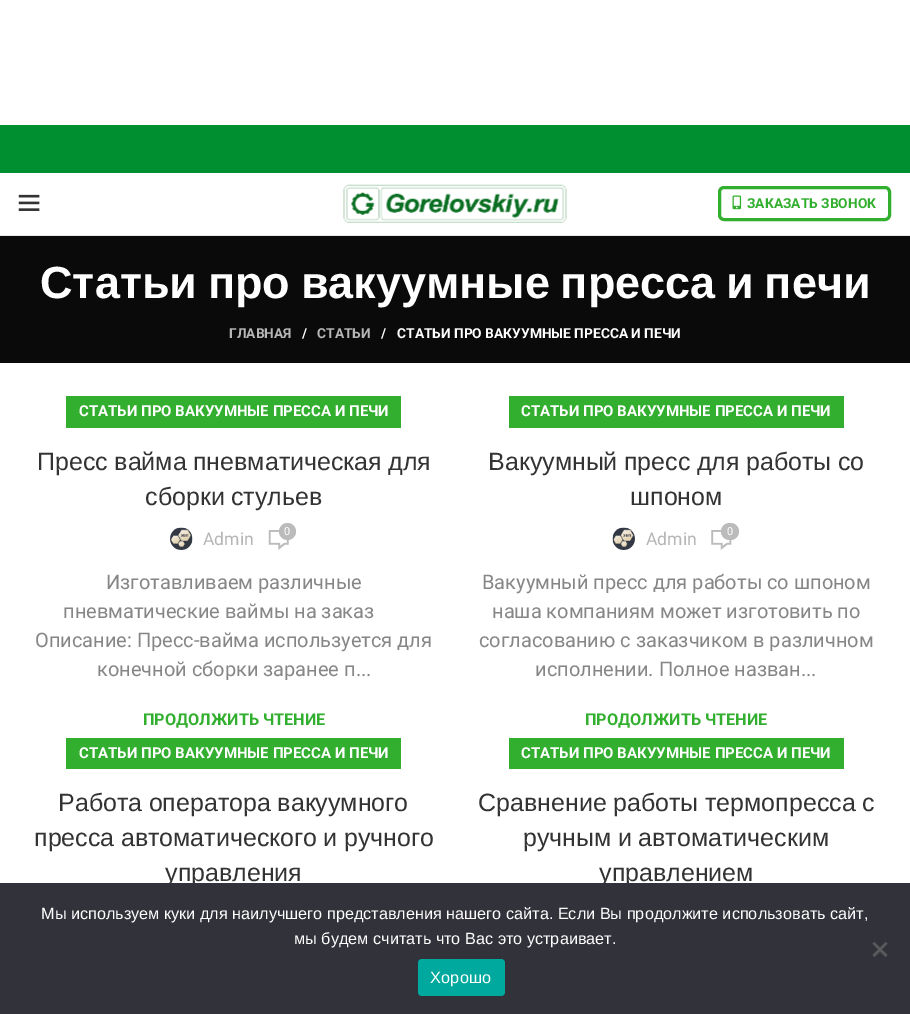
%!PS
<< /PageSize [910 1014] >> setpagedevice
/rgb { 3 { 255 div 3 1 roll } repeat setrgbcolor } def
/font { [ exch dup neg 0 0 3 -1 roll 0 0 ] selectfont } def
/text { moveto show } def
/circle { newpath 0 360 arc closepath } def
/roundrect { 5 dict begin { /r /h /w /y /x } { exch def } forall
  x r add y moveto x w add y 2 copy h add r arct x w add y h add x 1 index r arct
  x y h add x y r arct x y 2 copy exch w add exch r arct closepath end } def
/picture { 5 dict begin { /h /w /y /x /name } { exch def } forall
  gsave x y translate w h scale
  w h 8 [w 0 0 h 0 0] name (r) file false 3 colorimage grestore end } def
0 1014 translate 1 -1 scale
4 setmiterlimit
255 255 255 rgb
0 0 910 1014 rectfill
0 143 48 rgb
0 125 910 48 rectfill
232 232 232 rgb
0 235 910 1 rectfill
(img_01.rgb) 18 194 22 17 picture
(img_02.rgb) 343 184 224 39 picture
51 175 47 rgb
3 setlinewidth
719.5 187.5 170 32 4.5 roundrect stroke
(img_03.rgb) 732 195 10 15 picture
10 10 10 rgb
0 236 910 127 rectfill
51 175 47 rgb
66 396 335 32 rectfill
(img_04.rgb) 170 527 23 23 picture
(img_05.rgb) 268 530 21 20 picture
187 187 187 rgb
287.5 531.5 8.5 circle fill
51 175 47 rgb
509 396 335 32 rectfill
(img_06.rgb) 612 527 23 23 picture
(img_07.rgb) 711 530 21 20 picture
187 187 187 rgb
721 523 18 17 8.5 roundrect fill
51 175 47 rgb
66 738 335 31 rectfill
509 738 335 31 rectfill
/Roboto-Bold 13.75 font
(ЗАКАЗАТЬ ЗВОНОК) 747 208 text
/LiberationSans-Bold 45 font
255 255 255 rgb
40 298 moveto -1.75 0 32 (Статьи про вакуумные пресса и печи) widthshow
/Roboto-Bold 13.75 font
182 182 182 rgb
(ГЛАВНАЯ) 229 338 text
255 255 255 rgb
(/) 302 338 text
182 182 182 rgb
(СТАТЬИ) 317 338 text
255 255 255 rgb
(/) 381 338 text
(СТАТЬИ ПРО ВАКУУМНЫЕ ПРЕССА И ПЕЧИ) 397 338 text
/Roboto-Bold 15 font
(СТАТЬИ ПРО ВАКУУМНЫЕ ПРЕССА И ПЕЧИ) 79 416 text
/LiberationSans-Regular 25 font
51 51 51 rgb
37 470 moveto -0.5 0 32 (Пресс вайма пневматическая для) widthshow
145 505 moveto -0.5 0 32 (сборки стульев) widthshow
/Roboto-Regular 17.5 font
182 182 182 rgb
(Admin) 203 545 text
/Roboto-Regular 11 font
255 255 255 rgb
(0) 284 535 text
/Roboto-Regular 20 font
134 134 134 rgb
(Изготавливаем различные) 106 589 text
(пневматические ваймы на заказ) 63 618 text
(Описание: Пресс-вайма используется для) 35 647 text
(конечной сборки заранее п...) 97 676 text
/Roboto-Bold 16.25 font
51 175 47 rgb
(ПРОДОЛЖИТЬ ЧТЕНИЕ) 143 725 text
/Roboto-Bold 15 font
255 255 255 rgb
(СТАТЬИ ПРО ВАКУУМНЫЕ ПРЕССА И ПЕЧИ) 521 416 text
/LiberationSans-Regular 25 font
51 51 51 rgb
488 470 moveto -0.5 0 32 (Вакуумный пресс для работы со) widthshow
(шпоном) 630 505 text
/Roboto-Regular 17.5 font
182 182 182 rgb
(Admin) 646 545 text
/Roboto-Regular 11 font
255 255 255 rgb
(0) 727 535 text
/Roboto-Regular 20 font
134 134 134 rgb
(Вакуумный пресс для работы со шпоном) 482 589 text
(наша компаниям может изготовить по) 492 618 text
(согласованию с заказчиком в различном) 479 647 text
(исполнении. Полное назван...) 535 676 text
/Roboto-Bold 16.25 font
51 175 47 rgb
(ПРОДОЛЖИТЬ ЧТЕНИЕ) 585 725 text
/Roboto-Bold 15 font
255 255 255 rgb
(СТАТЬИ ПРО ВАКУУМНЫЕ ПРЕССА И ПЕЧИ) 79 758 text
/LiberationSans-Regular 25 font
51 51 51 rgb
58 811 moveto -0.5 0 32 (Работа оператора вакуумного) widthshow
34 846 moveto -0.5 0 32 (пресса автоматического и ручного) widthshow
(управления) 165 881 text
/Roboto-Bold 15 font
255 255 255 rgb
(СТАТЬИ ПРО ВАКУУМНЫЕ ПРЕССА И ПЕЧИ) 521 758 text
/LiberationSans-Regular 25 font
51 51 51 rgb
478 811 moveto -0.5 0 32 (Сравнение работы термопресса с) widthshow
523 846 moveto -0.5 0 32 (ручным и автоматическим) widthshow
(управлением) 599 881 text
50 50 58 rgb
0 883 910 131 rectfill
/LiberationSans-Regular 16.25 font
255 255 255 rgb
(Мы используем куки для наилучшего представления нашего сайта. Если Вы продолжите использовать сайт,) 41 919 text
(мы будем считать что Вас это устраивает.) 294 944 text
89 89 93 rgb
885.5 942 moveto 2 1.5 rlineto -13 13.5 rlineto -2 -2 rlineto closepath fill
872.5 943.5 moveto 2 -1.5 rlineto 13 13 rlineto -2 2 rlineto closepath fill
0 169 157 rgb
418 959 87 37 4 roundrect fill
255 255 255 rgb
430 983 moveto 0.25 0 (Хорошо) ashow
showpage
